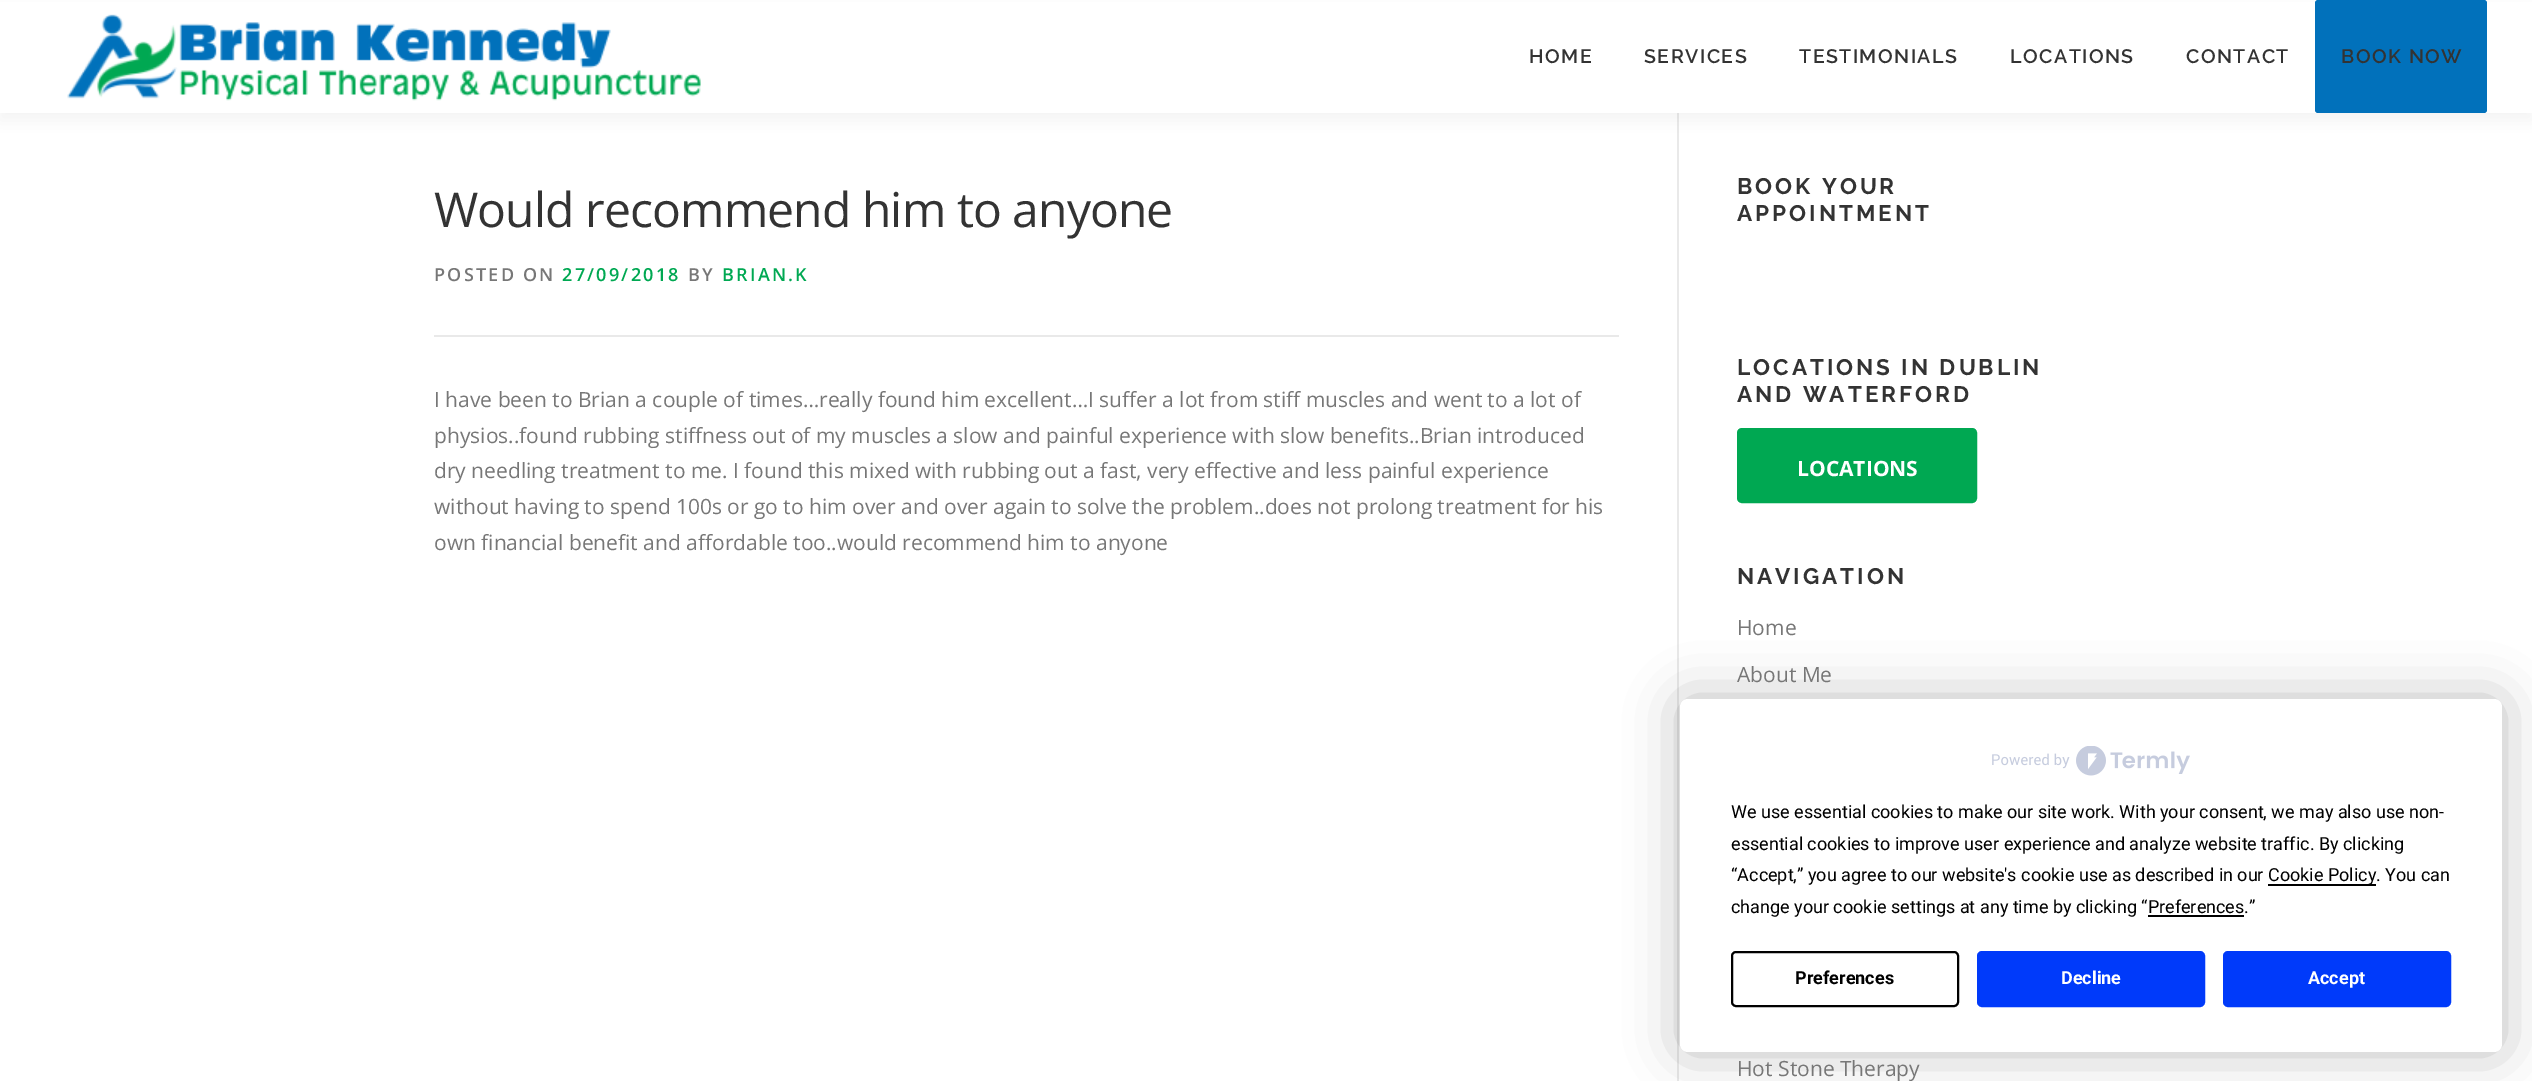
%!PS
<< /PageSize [2532 1081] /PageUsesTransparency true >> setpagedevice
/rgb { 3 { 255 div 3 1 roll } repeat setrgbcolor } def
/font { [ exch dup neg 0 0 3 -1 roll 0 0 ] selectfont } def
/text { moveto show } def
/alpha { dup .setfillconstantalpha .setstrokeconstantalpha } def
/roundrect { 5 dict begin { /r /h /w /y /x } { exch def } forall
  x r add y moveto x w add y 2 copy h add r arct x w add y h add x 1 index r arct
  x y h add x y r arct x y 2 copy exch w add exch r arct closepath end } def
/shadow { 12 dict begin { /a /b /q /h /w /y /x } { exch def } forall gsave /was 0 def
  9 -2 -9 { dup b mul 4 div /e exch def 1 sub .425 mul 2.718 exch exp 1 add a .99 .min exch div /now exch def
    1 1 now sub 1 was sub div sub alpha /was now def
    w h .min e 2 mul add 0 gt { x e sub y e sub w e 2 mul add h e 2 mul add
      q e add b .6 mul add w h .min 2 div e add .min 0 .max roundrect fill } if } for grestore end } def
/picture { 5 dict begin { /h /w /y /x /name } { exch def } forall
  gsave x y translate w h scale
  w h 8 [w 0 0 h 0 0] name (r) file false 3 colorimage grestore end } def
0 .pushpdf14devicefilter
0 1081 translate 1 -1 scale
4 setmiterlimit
255 255 255 rgb
0 0 2532 1081 rectfill
233 233 233 rgb
1677 113 2 968 rectfill
50 50 50 rgb
0 8 2532 112 0 7.5 0.06 shadow
255 255 255 rgb
0 2 2532 111 rectfill
(img_01.rgb) 67 14 634 87 picture
1 113 187 rgb
2315 0 172 113 3 roundrect fill
233 233 233 rgb
434 335 1185 2 rectfill
0 168 82 rgb
1738.5 429.5 237 72 3.5 roundrect gsave fill grestore
3 setlinewidth
stroke
0 0 0 rgb
1680 699 822 353 8 26 0.25 shadow
255 255 255 rgb
1680 699 822 353 8 roundrect fill
(img_02.rgb) 1992 746 198 30 picture
0 0 0 rgb
2268 884 108 2 rectfill
2148 915 96 2 rectfill
2 setlinewidth
1732 952 226 54 4 roundrect stroke
0 58 250 rgb
1978 952 226 54 4 roundrect gsave fill grestore
stroke
2224 952 226 54 4 roundrect gsave fill grestore
stroke
/Raleway-SemiBold 19.5 font
51 51 51 rgb
1529 63 moveto 1.5 0 (HOME) ashow
1644 63 moveto 1.5 0 (SERVICES) ashow
1799 63 moveto 1.5 0 (TESTIMONIALS) ashow
2010 63 moveto 1.5 0 (LOCATIONS) ashow
2186 63 moveto 1.5 0 (CONTACT) ashow
2341 63 moveto 1.5 0 (BOOK NOW) ashow
/OpenSans-Regular 48 font
434 227 moveto -0.9 0 (Would recommend him to anyone) ashow
/OpenSans-SemiBold 18 font
119 119 119 rgb
434 281 moveto 2.25 0 (POSTED ON) ashow
0 168 82 rgb
562 281 moveto 2.25 0 (27/09/2018) ashow
119 119 119 rgb
688 281 moveto 2.25 0 (BY) ashow
0 168 82 rgb
722 281 moveto 2.25 0 (BRIAN.K) ashow
/OpenSans-Regular 21 font
119 119 119 rgb
(I have been to Brian a couple of times…really found him excellent…I suffer a lot from stiff muscles and went to a lot of) 434 407 text
(physios..found rubbing stiffness out of my muscles a slow and painful experience with slow benefits..Brian introduced) 434 443 text
(dry needling treatment to me. I found this mixed with rubbing out a fast, very effective and less painful experience) 434 478 text
(without having to spend 100s or go to him over and over again to solve the problem..does not prolong treatment for his) 434 514 text
(own financial benefit and affordable too..would recommend him to anyone) 434 550 text
/Raleway-Bold 22.5 font
51 51 51 rgb
1737 194 moveto 3 0 (BOOK YOUR) ashow
1737 221 moveto 3 0 (APPOINTMENT) ashow
1737 375 moveto 3 0 (LOCATIONS IN DUBLIN) ashow
1737 402 moveto 3 0 (AND WATERFORD) ashow
/OpenSans-Bold 21 font
255 255 255 rgb
(LOCATIONS) 1797 476 text
/Raleway-Bold 22.5 font
51 51 51 rgb
1737 584 moveto 3 0 (NAVIGATION) ashow
/OpenSans-Regular 21 font
119 119 119 rgb
(Home) 1737 635 text
(About Me) 1737 682 text
(Hot Stone Therapy) 1737 1076 text
/Roboto-Regular 18 font
0 0 0 rgb
(We use essential cookies to make our site work. With your consent, we may also use non-) 1731 818 text
(essential cookies to improve user experience and analyze website traffic. By clicking) 1731 850 text
(“Accept,” you agree to our website's cookie use as described in our) 1731 881 text
(Cookie Policy. You can) 2268 881 text
(change your cookie settings at any time by clicking “Preferences.”) 1731 913 text
/Roboto-Bold 18 font
(Preferences) 1795 984 text
255 255 255 rgb
(Decline) 2061 984 text
(Accept) 2308 984 text
.poppdf14devicefilter showpage
